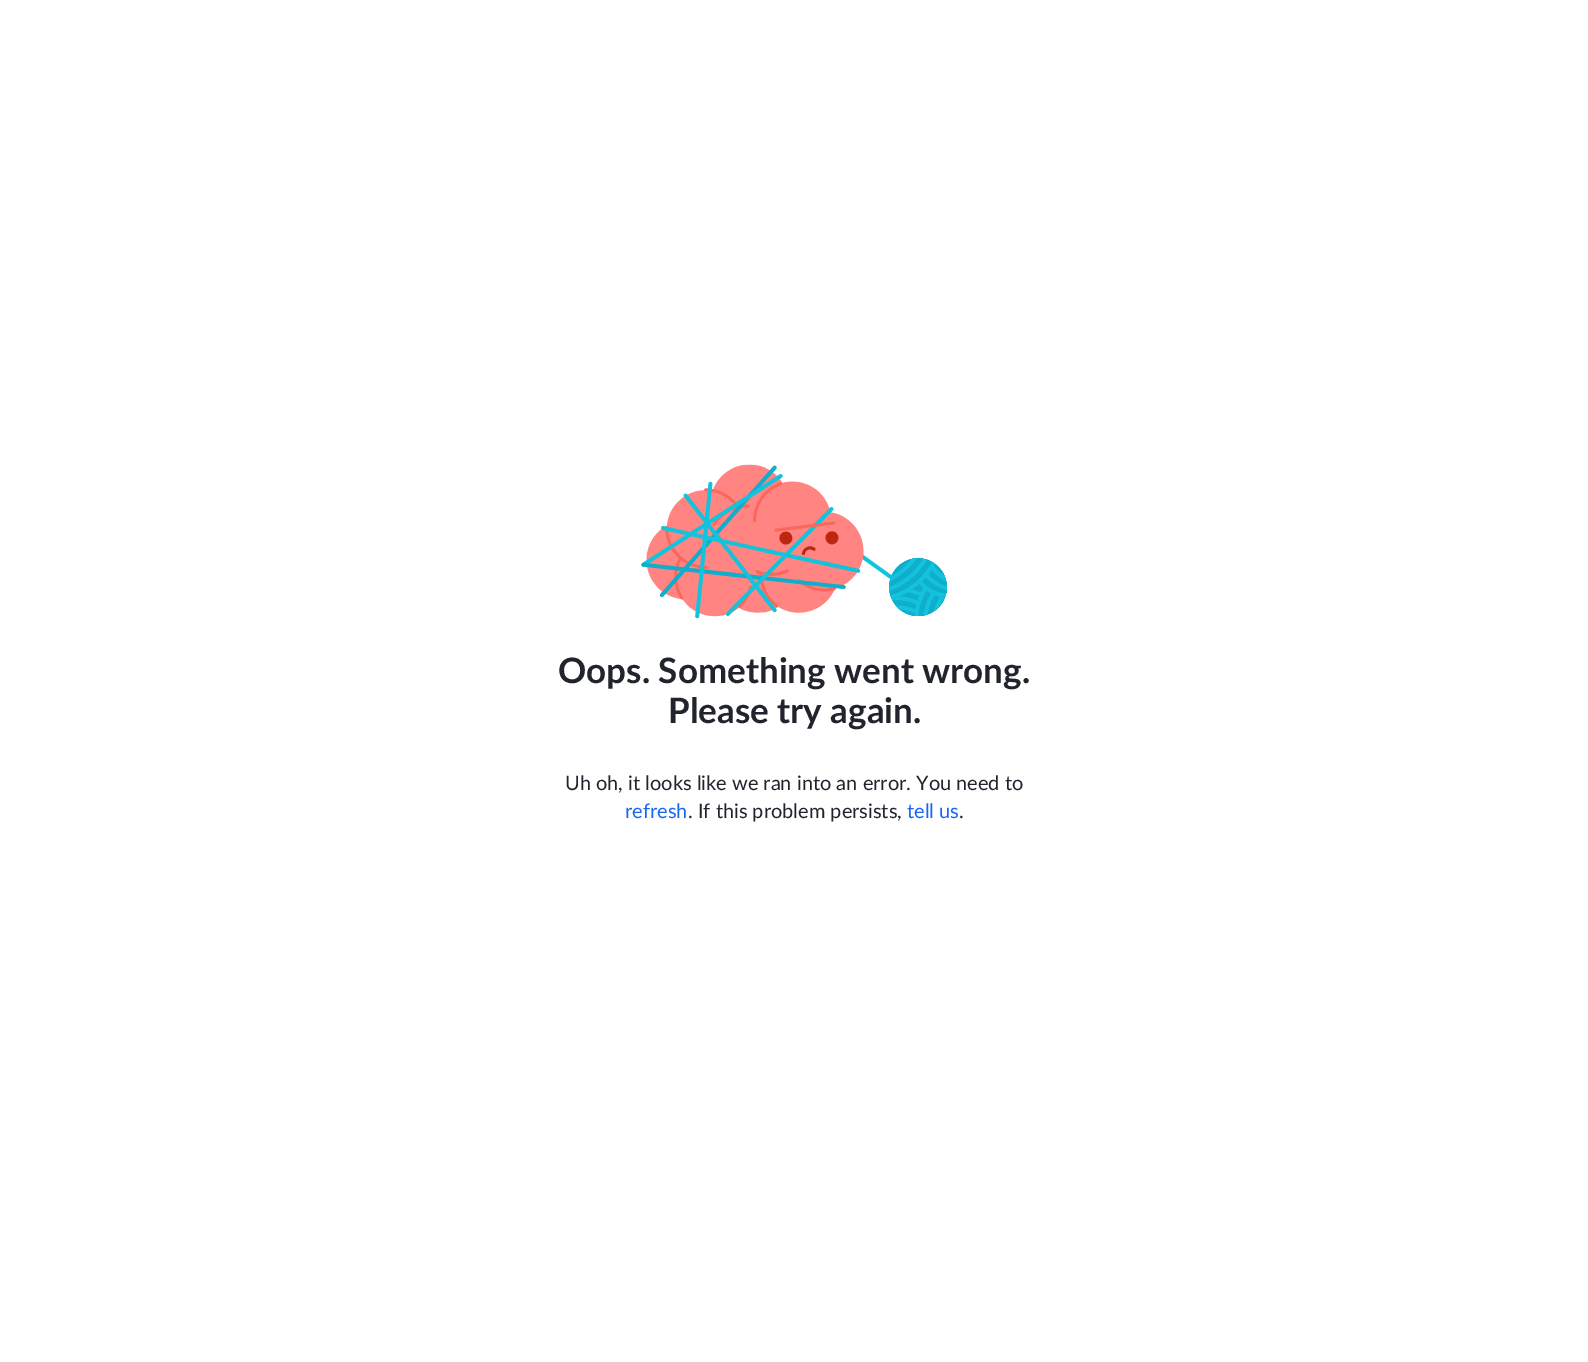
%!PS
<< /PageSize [1588 1362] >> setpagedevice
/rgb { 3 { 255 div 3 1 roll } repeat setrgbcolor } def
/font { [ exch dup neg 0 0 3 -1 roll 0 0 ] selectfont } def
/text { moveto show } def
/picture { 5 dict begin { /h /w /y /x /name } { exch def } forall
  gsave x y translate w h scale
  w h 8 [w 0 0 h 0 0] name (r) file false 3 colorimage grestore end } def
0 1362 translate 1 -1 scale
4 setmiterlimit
255 255 255 rgb
0 0 1588 1362 rectfill
(img_01.rgb) 641 464 306 155 picture
/Lato-Bold 35 font
33 36 44 rgb
(Oops. Something went wrong.) 558 683 text
(Please try again.) 668 723 text
/Lato-Regular 20 font
(Uh oh, it looks like we ran into an error. You need to) 565 790 text
24 101 242 rgb
(refresh) 625 818 text
33 36 44 rgb
(. If this problem persists,) 688 818 text
24 101 242 rgb
(tell us) 907 818 text
33 36 44 rgb
(.) 959 818 text
showpage
